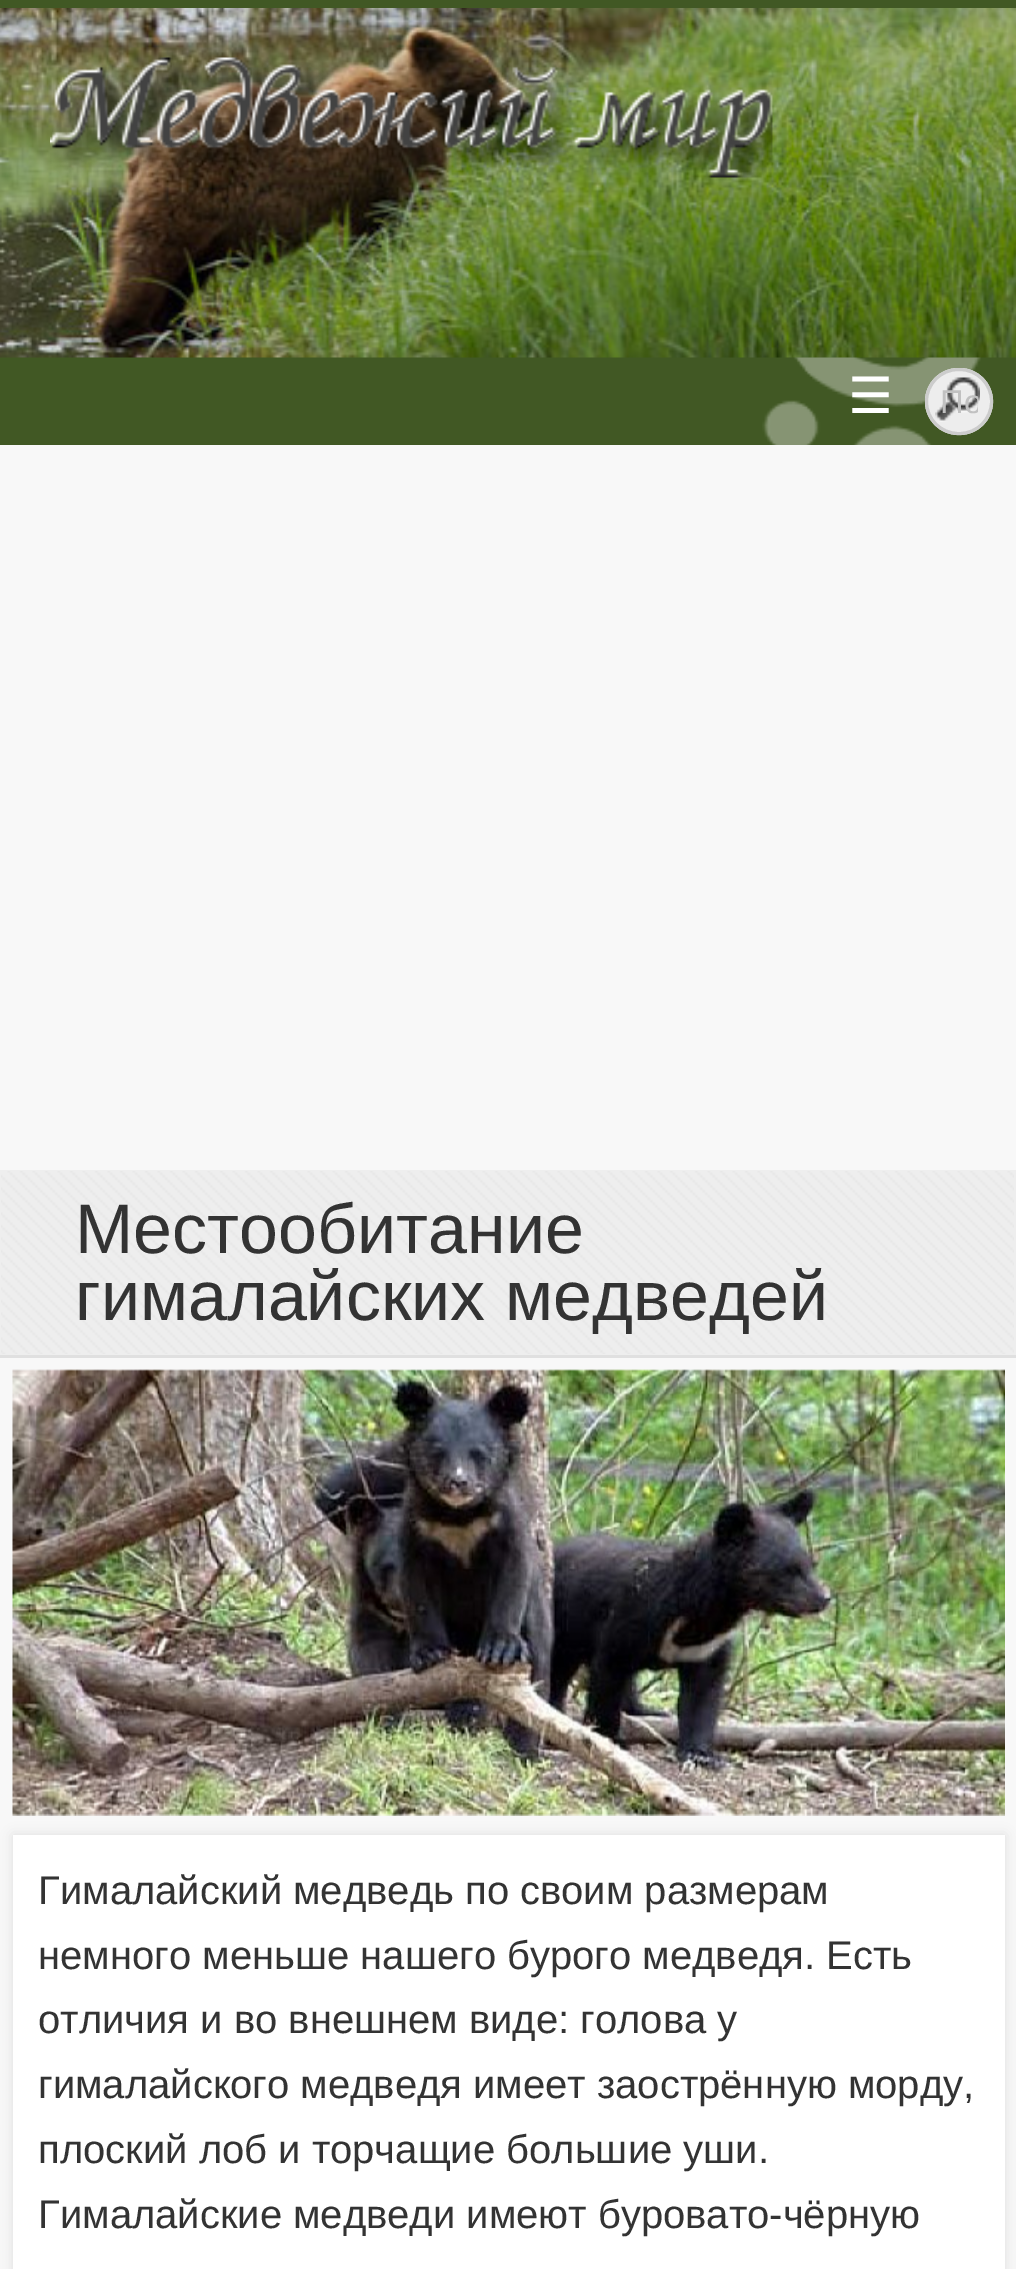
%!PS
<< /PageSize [1016 2269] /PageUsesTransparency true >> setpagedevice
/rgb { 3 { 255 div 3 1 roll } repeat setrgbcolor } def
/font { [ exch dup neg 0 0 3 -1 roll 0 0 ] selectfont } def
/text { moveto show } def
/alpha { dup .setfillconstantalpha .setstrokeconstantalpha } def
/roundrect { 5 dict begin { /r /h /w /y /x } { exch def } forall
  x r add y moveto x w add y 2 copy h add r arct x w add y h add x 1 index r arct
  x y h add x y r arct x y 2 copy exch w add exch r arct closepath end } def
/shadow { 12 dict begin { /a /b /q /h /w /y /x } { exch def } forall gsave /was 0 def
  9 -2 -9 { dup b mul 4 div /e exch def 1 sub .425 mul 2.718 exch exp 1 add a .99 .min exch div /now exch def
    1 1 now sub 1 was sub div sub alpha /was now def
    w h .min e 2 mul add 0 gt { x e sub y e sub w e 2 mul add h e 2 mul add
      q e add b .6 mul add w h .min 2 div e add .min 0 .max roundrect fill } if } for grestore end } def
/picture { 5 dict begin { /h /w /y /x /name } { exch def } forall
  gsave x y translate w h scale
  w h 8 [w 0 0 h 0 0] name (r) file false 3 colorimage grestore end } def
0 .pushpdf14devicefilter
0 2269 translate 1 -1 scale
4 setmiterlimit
65 88 36 rgb
0 0 1016 2269 rectfill
(img_01.rgb) 0 8 1016 350 picture
(img_02.rgb) 50 57 723 121 picture
(img_03.rgb) 762 357 219 88 picture
237 237 237 rgb
925 368 68 67 33.5 roundrect fill
(img_04.rgb) 935 377 45 45 picture
204 204 204 rgb
3 setlinewidth
926.5 369.5 65 64 32 roundrect stroke
248 248 248 rgb
0 445 1016 725 rectfill
238 238 238 rgb
0 1170 1016 185 rectfill
(img_05.rgb) 1 1171 1013 183 picture
224 224 224 rgb
0 1355 1016 3 rectfill
248 248 248 rgb
0 1358 1016 911 rectfill
(img_06.rgb) 12 1369 993 447 picture
0 0 0 rgb
13 1835 992 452 0 6 0.1 shadow
255 255 255 rgb
13 1835 992 434 rectfill
/DejaVuSans-Regular 50 font
(☰) 848 413 text
gsave
940 383 38 37 rectclip
/LiberationSans-Regular 33 font
193 193 193 rgb
(По) 940 413 text
grestore
/LiberationSans-Regular 70 font
51 51 51 rgb
(Местообитание) 75 1253 text
(гималайских медведей) 75 1320 text
/LiberationSans-Regular 40 font
(Гималайский медведь по своим размерам) 38 1904 text
(немного меньше нашего бурого медведя. Есть) 38 1969 text
(отличия и во внешнем виде: голова у) 38 2033 text
(гималайского медведя имеет заострённую морду,) 38 2098 text
(плоский лоб и торчащие большие уши.) 38 2163 text
(Гималайские медведи имеют буровато-чёрную) 38 2228 text
.poppdf14devicefilter showpage
